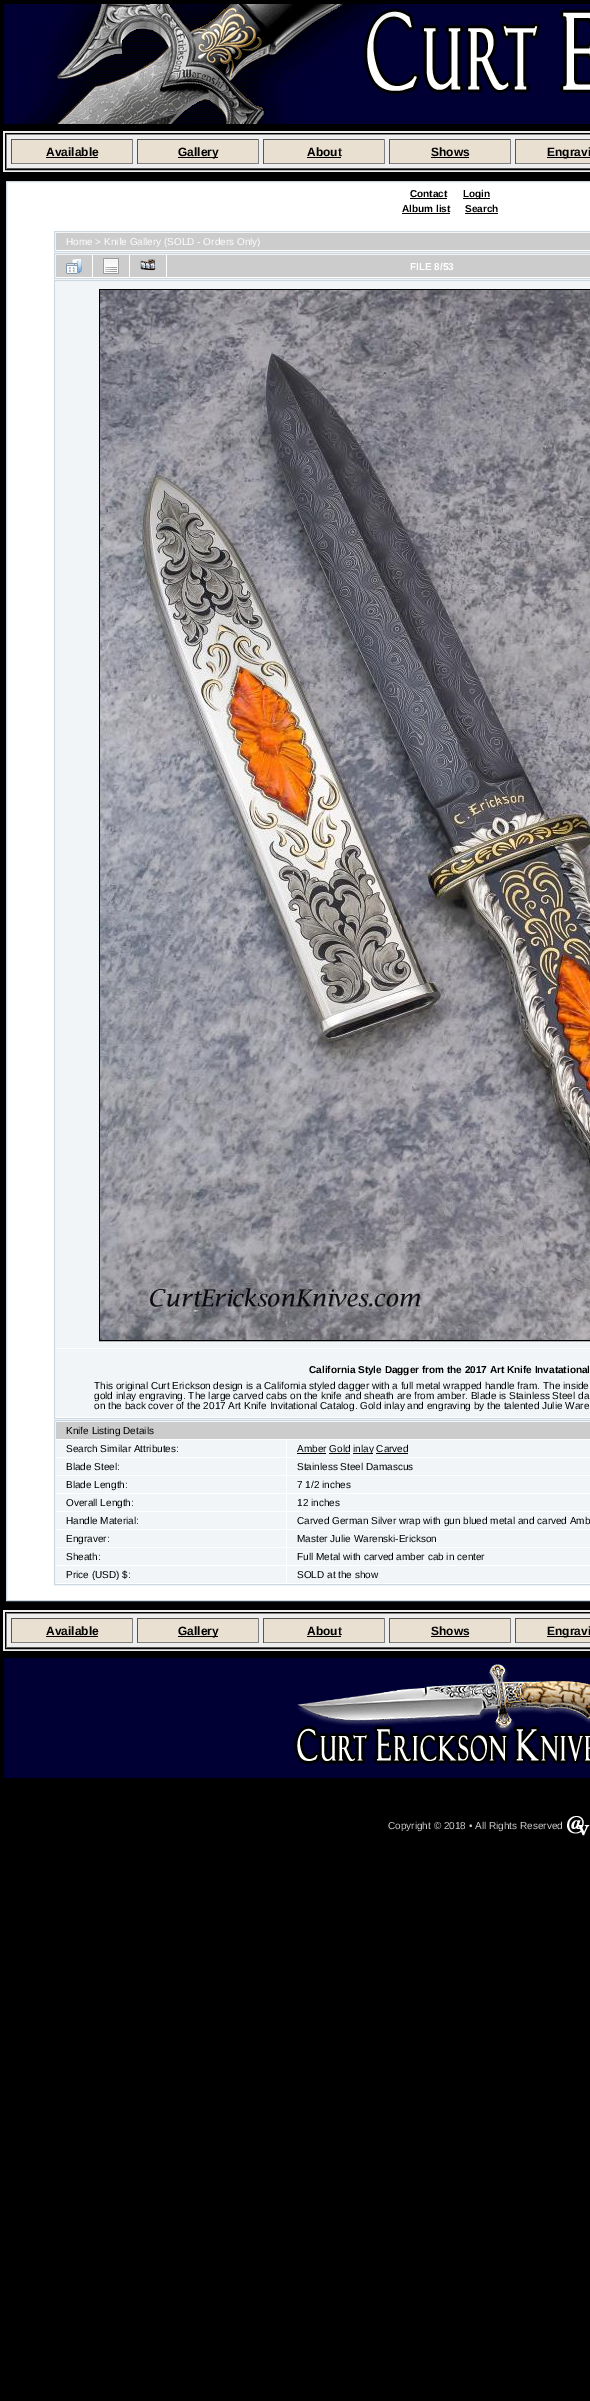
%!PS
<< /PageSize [590 2401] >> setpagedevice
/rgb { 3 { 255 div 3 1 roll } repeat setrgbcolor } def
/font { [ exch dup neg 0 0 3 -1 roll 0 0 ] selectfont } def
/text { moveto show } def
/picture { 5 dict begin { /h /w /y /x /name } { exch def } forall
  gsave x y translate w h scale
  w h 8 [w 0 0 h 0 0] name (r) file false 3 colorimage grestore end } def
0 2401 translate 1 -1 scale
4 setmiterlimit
0 0 0 rgb
0 0 590 2401 rectfill
(img_01.rgb) 4 4 586 120 picture
238 238 238 rgb
3 131 587 41 rectfill
0 0 0 rgb
5.5 133.5 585 36 rectstroke
128 128 128 rgb
6 134 584 1 rectfill
85 85 85 rgb
6 168 584 1 rectfill
128 128 128 rgb
6 134 1 35 rectfill
233 224 209 rgb
12 140 120 23 rectfill
85 85 85 rgb
11 139 122 1 rectfill
128 128 128 rgb
132 139 1 25 rectfill
11 163 122 1 rectfill
85 85 85 rgb
11 139 1 25 rectfill
0 0 0 rgb
46 157 52 1 rectfill
233 224 209 rgb
138 140 120 23 rectfill
85 85 85 rgb
137 139 122 1 rectfill
128 128 128 rgb
258 139 1 25 rectfill
137 163 122 1 rectfill
85 85 85 rgb
137 139 1 25 rectfill
0 0 0 rgb
178 157 40 1 rectfill
233 224 209 rgb
264 140 120 23 rectfill
85 85 85 rgb
263 139 122 1 rectfill
128 128 128 rgb
384 139 1 25 rectfill
263 163 122 1 rectfill
85 85 85 rgb
263 139 1 25 rectfill
0 0 0 rgb
307 157 34 1 rectfill
233 224 209 rgb
390 140 120 23 rectfill
85 85 85 rgb
389 139 122 1 rectfill
128 128 128 rgb
510 139 1 25 rectfill
389 163 122 1 rectfill
85 85 85 rgb
389 139 1 25 rectfill
0 0 0 rgb
431 157 38 1 rectfill
233 224 209 rgb
516 140 74 23 rectfill
85 85 85 rgb
515 139 75 1 rectfill
128 128 128 rgb
515 163 75 1 rectfill
85 85 85 rgb
515 139 1 25 rectfill
0 0 0 rgb
547 157 43 1 rectfill
255 255 255 rgb
6.5 181.5 moveto 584 0 rlineto 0 1419 rlineto -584 0 rlineto closepath gsave fill grestore
204 215 224 rgb
stroke
0 0 0 rgb
410 198 37 1 rectfill
463 198 27 1 rectfill
402 213 48 1 rectfill
465 213 33 1 rectfill
204 215 224 rgb
54.5 231.5 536 20 rectstroke
204 204 204 rgb
56 233 534 17 rectfill
204 215 224 rgb
54.5 253.5 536 25 rectstroke
204 204 204 rgb
56 255 36 22 rectfill
(img_02.rgb) 66 258 16 16 picture
93 255 36 22 rectfill
(img_03.rgb) 103 258 16 16 picture
130 255 36 22 rectfill
(img_04.rgb) 140 259 16 12 picture
167 255 423 22 rectfill
204 215 224 rgb
54.5 280.5 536 1138 rectstroke
242 245 247 rgb
56 282 534 1066 rectfill
0 0 0 rgb
99.5 289.5 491 1051 rectstroke
(img_05.rgb) 100 290 490 1050 picture
242 245 247 rgb
56 1349 534 68 rectfill
204 215 224 rgb
54.5 1420.5 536 164 rectstroke
204 204 204 rgb
56 1422 534 17 rectfill
242 245 247 rgb
56 1440 230 17 rectfill
287 1440 303 17 rectfill
0 0 0 rgb
297 1453 29 1 rectfill
329 1453 21 1 rectfill
353 1453 20 1 rectfill
376 1453 32 1 rectfill
242 245 247 rgb
56 1458 230 17 rectfill
287 1458 303 17 rectfill
56 1476 230 17 rectfill
287 1476 303 17 rectfill
56 1494 230 17 rectfill
287 1494 303 17 rectfill
56 1512 230 17 rectfill
287 1512 303 17 rectfill
56 1530 230 17 rectfill
287 1530 303 17 rectfill
56 1548 230 17 rectfill
287 1548 303 17 rectfill
56 1566 230 17 rectfill
287 1566 303 17 rectfill
238 238 238 rgb
3 1610 587 41 rectfill
0 0 0 rgb
5.5 1612.5 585 36 rectstroke
128 128 128 rgb
6 1613 584 1 rectfill
85 85 85 rgb
6 1647 584 1 rectfill
128 128 128 rgb
6 1613 1 35 rectfill
233 224 209 rgb
12 1619 120 23 rectfill
85 85 85 rgb
11 1618 122 1 rectfill
128 128 128 rgb
132 1618 1 25 rectfill
11 1642 122 1 rectfill
85 85 85 rgb
11 1618 1 25 rectfill
0 0 0 rgb
46 1636 52 1 rectfill
233 224 209 rgb
138 1619 120 23 rectfill
85 85 85 rgb
137 1618 122 1 rectfill
128 128 128 rgb
258 1618 1 25 rectfill
137 1642 122 1 rectfill
85 85 85 rgb
137 1618 1 25 rectfill
0 0 0 rgb
178 1636 40 1 rectfill
233 224 209 rgb
264 1619 120 23 rectfill
85 85 85 rgb
263 1618 122 1 rectfill
128 128 128 rgb
384 1618 1 25 rectfill
263 1642 122 1 rectfill
85 85 85 rgb
263 1618 1 25 rectfill
0 0 0 rgb
307 1636 34 1 rectfill
233 224 209 rgb
390 1619 120 23 rectfill
85 85 85 rgb
389 1618 122 1 rectfill
128 128 128 rgb
510 1618 1 25 rectfill
389 1642 122 1 rectfill
85 85 85 rgb
389 1618 1 25 rectfill
0 0 0 rgb
431 1636 38 1 rectfill
233 224 209 rgb
516 1619 74 23 rectfill
85 85 85 rgb
515 1618 75 1 rectfill
128 128 128 rgb
515 1642 75 1 rectfill
85 85 85 rgb
515 1618 1 25 rectfill
0 0 0 rgb
547 1636 43 1 rectfill
(img_06.rgb) 4 1658 586 120 picture
(img_07.rgb) 567 1816 23 20 picture
/LiberationSans-Bold 12 font
(Available) 46 156 text
(Gallery) 178 156 text
(About) 307 156 text
(Shows) 431 156 text
(Engravi) 547 156 text
/LiberationSans-Bold 10 font
(Contact) 410 197 text
(Login) 463 197 text
(Album list) 402 212 text
(Search) 465 212 text
/LiberationSans-Regular 10 font
255 255 255 rgb
(Home > Knife Gallery \(SOLD - Orders Only\)) 66 245 text
/LiberationSans-Bold 10 font
(FILE 8/53) 410 270 text
0 0 0 rgb
(California Style Dagger from the 2017 Art Knife Invatational) 309 1373 text
/LiberationSans-Regular 10 font
(This original Curt Erickson design is a California styled dagger with a full metal wrapped handle fram. The inside) 94 1389 text
(gold inlay engraving. The large carved cabs on the knife and sheath are from amber. Blade is Stainless Steel da) 94 1399 text
(on the back cover of the 2017 Art Knife Invitational Catalog. Gold inlay and engraving by the talented Julie Ware) 94 1409 text
(Knife Listing Details) 66 1434 text
(Search Similar Attributes:) 66 1452 text
(Amber Gold) 297 1452 text
(inlay Carved) 353 1452 text
(Blade Steel:) 66 1470 text
(Stainless Steel Damascus) 297 1470 text
(Blade Length:) 66 1488 text
(7 1/2 inches) 297 1488 text
(Overall Length:) 66 1506 text
(12 inches) 297 1506 text
(Handle Material:) 66 1524 text
(Carved German Silver wrap with gun blued metal and carved Amb) 297 1524 text
(Engraver:) 66 1542 text
(Master Julie Warenski-Erickson) 297 1542 text
(Sheath:) 66 1560 text
(Full Metal with carved amber cab in center) 297 1560 text
(Price \(USD\) $:) 66 1578 text
(SOLD at the show) 297 1578 text
/LiberationSans-Bold 12 font
(Available) 46 1635 text
(Gallery) 178 1635 text
(About) 307 1635 text
(Shows) 431 1635 text
(Engravi) 547 1635 text
/LiberationSans-Regular 10 font
204 204 204 rgb
(Copyright © 2018 • All Rights Reserved) 388 1829 text
showpage
